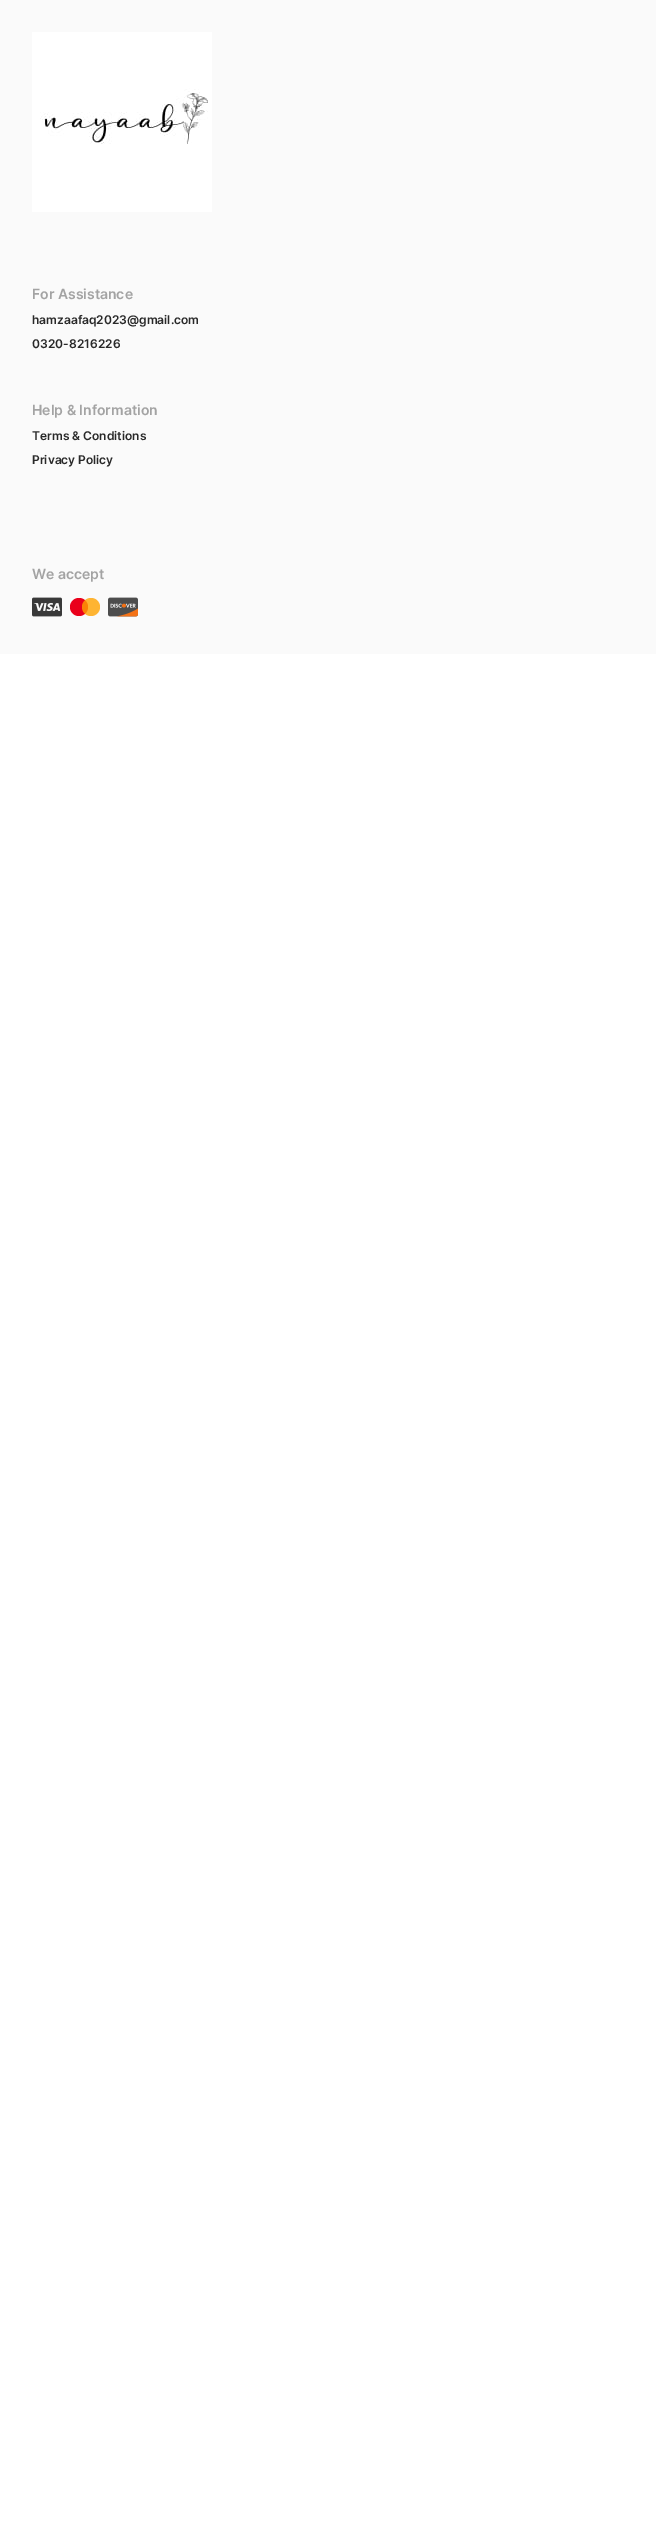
%!PS
<< /PageSize [656 2534] /PageUsesTransparency true >> setpagedevice
/rgb { 3 { 255 div 3 1 roll } repeat setrgbcolor } def
/font { [ exch dup neg 0 0 3 -1 roll 0 0 ] selectfont } def
/text { moveto show } def
/alpha { dup .setfillconstantalpha .setstrokeconstantalpha } def
/circle { newpath 0 360 arc closepath } def
/picture { 5 dict begin { /h /w /y /x /name } { exch def } forall
  gsave x y translate w h scale
  w h 8 [w 0 0 h 0 0] name (r) file false 3 colorimage grestore end } def
0 .pushpdf14devicefilter
0 2534 translate 1 -1 scale
4 setmiterlimit
255 255 255 rgb
0 0 656 2534 rectfill
250 250 250 rgb
0 0 656 654 rectfill
(img_01.rgb) 32 32 180 180 picture
(img_02.rgb) 32 597 30 20 picture
234 0 27 rgb
79 607 9 circle fill
0.8 alpha
255 162 0 rgb
91 607 9 circle fill
1 alpha
(img_03.rgb) 108 597 30 20 picture
/Inter-SemiBold 14 font
163 163 163 rgb
(For Assistance) 32 299 text
/Inter-SemiBold 12 font
41 41 41 rgb
(hamzaafaq2023@gmail.com) 32 324 text
(0320-8216226) 32 348 text
/Inter-SemiBold 14 font
163 163 163 rgb
(Help & Information) 32 415 text
/Inter-SemiBold 12 font
41 41 41 rgb
(Terms & Conditions) 32 440 text
(Privacy Policy) 32 464 text
/Inter-SemiBold 14 font
163 163 163 rgb
(We accept) 32 579 text
.poppdf14devicefilter showpage
